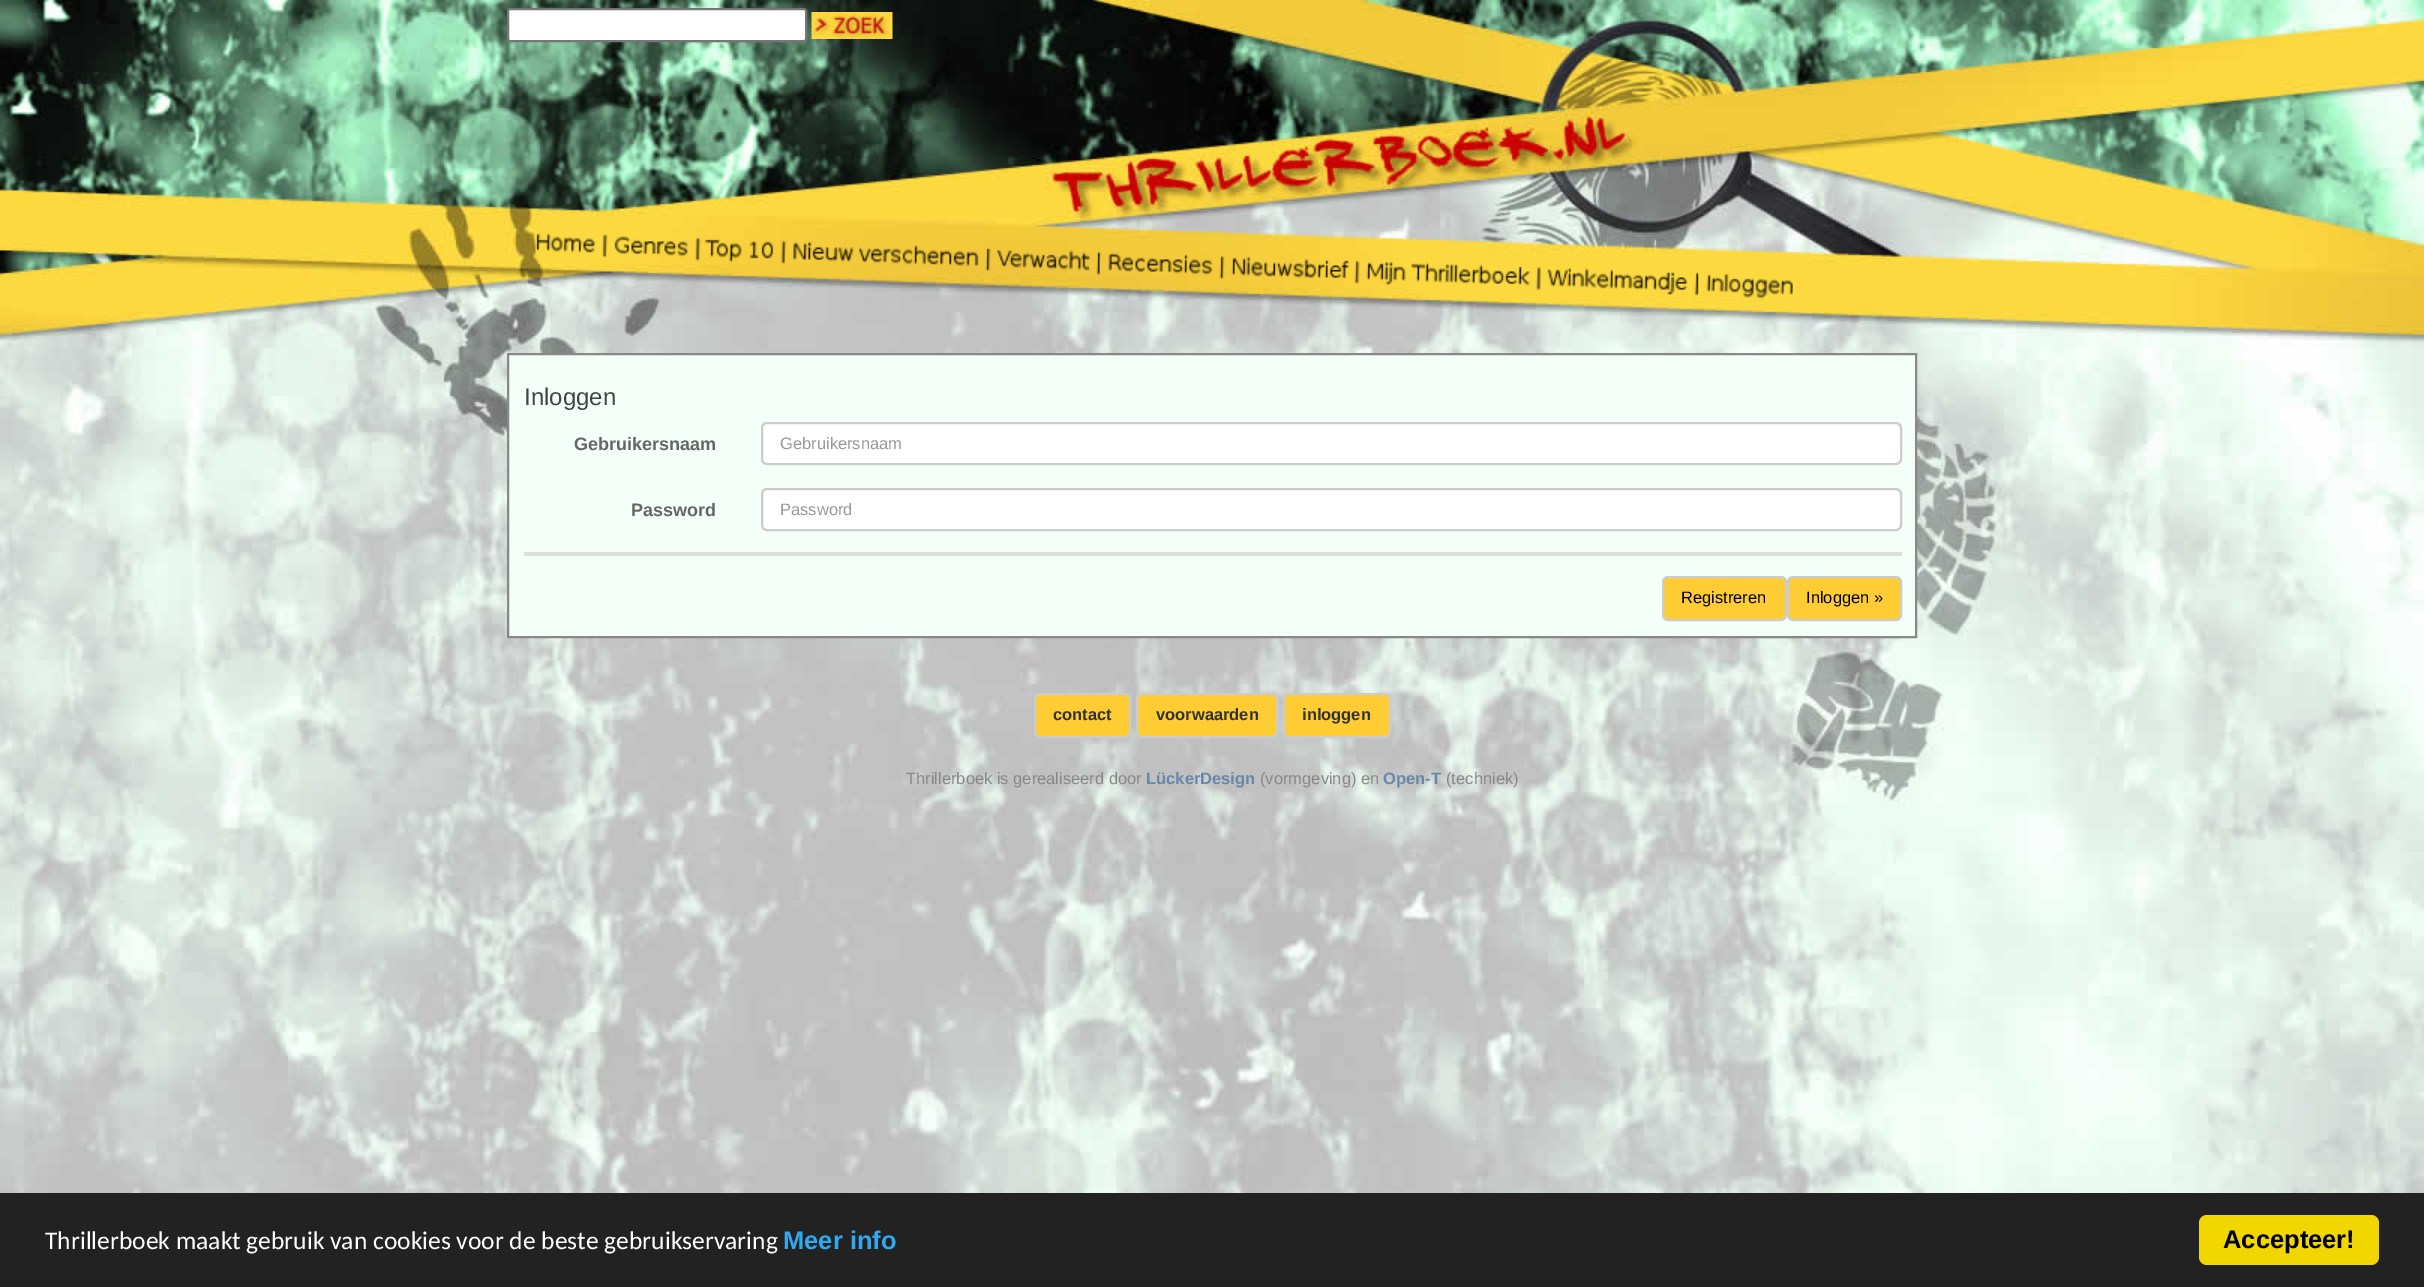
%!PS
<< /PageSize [2424 1287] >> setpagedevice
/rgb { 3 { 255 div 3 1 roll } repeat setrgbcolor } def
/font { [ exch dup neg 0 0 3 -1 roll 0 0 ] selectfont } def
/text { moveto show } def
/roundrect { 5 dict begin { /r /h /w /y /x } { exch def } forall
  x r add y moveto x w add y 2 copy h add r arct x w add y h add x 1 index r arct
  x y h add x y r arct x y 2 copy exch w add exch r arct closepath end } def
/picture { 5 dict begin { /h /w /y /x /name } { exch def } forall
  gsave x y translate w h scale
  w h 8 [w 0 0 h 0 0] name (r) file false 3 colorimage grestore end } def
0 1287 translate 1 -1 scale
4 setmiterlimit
255 255 255 rgb
0 0 2424 1287 rectfill
(img_01.rgb) 0 0 2424 1193 picture
508 9 298 32 2 roundrect gsave fill grestore
118 118 118 rgb
2 setlinewidth
stroke
(img_02.rgb) 811 12 82 27 picture
(img_03.rgb) 536 233 72 25 picture
(img_04.rgb) 614 235 87 26 picture
(img_05.rgb) 704 239 83 26 picture
(img_06.rgb) 793 241 198 30 picture
(img_07.rgb) 997 250 105 25 picture
(img_08.rgb) 1108 253 117 27 picture
(img_09.rgb) 1231 256 129 28 picture
(img_10.rgb) 1366 262 175 29 picture
(img_11.rgb) 1547 268 152 28 picture
(img_12.rgb) 1706 274 87 25 picture
243 255 248 rgb
508 354 moveto 1408 0 rlineto 0 283 rlineto -1408 0 rlineto closepath gsave fill grestore
136 136 136 rgb
stroke
255 255 255 rgb
761 422 1141 43 6 roundrect fill
236 236 236 rgb
766 424 moveto 1130 0 rlineto 2 0 4 3 4 5 rcurveto 0 31 rlineto -1 3 rlineto 1 -1 2 -3 2 -4 rcurveto 0 -31 rlineto 0 -3 -2 -5 -5 -5 rcurveto -1129 0 rlineto -3 0 -5 2 -5 5 rcurveto 0 1 rlineto 0 -2 2 -5 4 -5 rcurveto closepath fill
204 204 204 rgb
762 423 1139 41 5 roundrect stroke
255 255 255 rgb
761 488 1141 43 6 roundrect fill
236 236 236 rgb
766 490 moveto 1130 0 rlineto 2 0 4 3 4 5 rcurveto 0 31 rlineto -1 3 rlineto 1 -1 2 -3 2 -4 rcurveto 0 -31 rlineto 0 -3 -2 -5 -5 -5 rcurveto -1129 0 rlineto -3 0 -5 2 -5 5 rcurveto 0 1 rlineto 0 -2 2 -5 4 -5 rcurveto closepath fill
204 204 204 rgb
762 489 1139 41 5 roundrect stroke
221 221 221 rgb
524 552 1378 4 rectfill
255 204 51 rgb
1663 577 123 43 5 roundrect gsave fill grestore
204 204 204 rgb
stroke
255 204 51 rgb
1788 577 113 43 5 roundrect gsave fill grestore
204 204 204 rgb
stroke
255 204 51 rgb
1035 694 95 43 5 roundrect gsave fill grestore
204 204 204 rgb
stroke
255 204 51 rgb
1137 694 140 43 5 roundrect gsave fill grestore
204 204 204 rgb
stroke
255 204 51 rgb
1284 694 106 43 5 roundrect gsave fill grestore
204 204 204 rgb
stroke
34 34 34 rgb
0 1193 2424 94 rectfill
241 214 0 rgb
2199 1215 180 50 8 roundrect fill
/LiberationSans-Regular 24 font
68 68 68 rgb
(Inloggen) 524 405 text
/LiberationSans-Bold 18 font
102 102 102 rgb
(Gebruikersnaam) 574 450 text
/LiberationSans-Regular 16.5 font
153 153 153 rgb
(Gebruikersnaam) 780 449 text
/LiberationSans-Bold 18 font
102 102 102 rgb
(Password) 631 516 text
/LiberationSans-Regular 16.5 font
153 153 153 rgb
(Password) 780 515 text
0 0 0 rgb
(Registreren) 1681 603 text
(Inloggen ») 1806 603 text
/LiberationSans-Bold 16.5 font
51 51 51 rgb
(contact) 1053 720 text
(voorwaarden) 1156 720 text
(inloggen) 1302 720 text
/LiberationSans-Regular 16.5 font
136 136 136 rgb
(Thrillerboek is gerealiseerd door) 906 784 text
/LiberationSans-Bold 16.5 font
102 136 170 rgb
(LückerDesign) 1146 784 text
/LiberationSans-Regular 16.5 font
136 136 136 rgb
(\(vormgeving\) en) 1260 784 text
/LiberationSans-Bold 16.5 font
102 136 170 rgb
(Open-T) 1383 784 text
/LiberationSans-Regular 16.5 font
136 136 136 rgb
(\(techniek\)) 1446 784 text
/Carlito-Regular 25.5 font
255 255 255 rgb
(Thrillerboek maakt gebruik van cookies voor de beste gebruikservaring) 45 1249 text
/LiberationSans-Bold 25.5 font
49 168 240 rgb
(Meer info) 783 1249 text
0 0 0 rgb
(Accepteer!) 2223 1248 text
showpage
